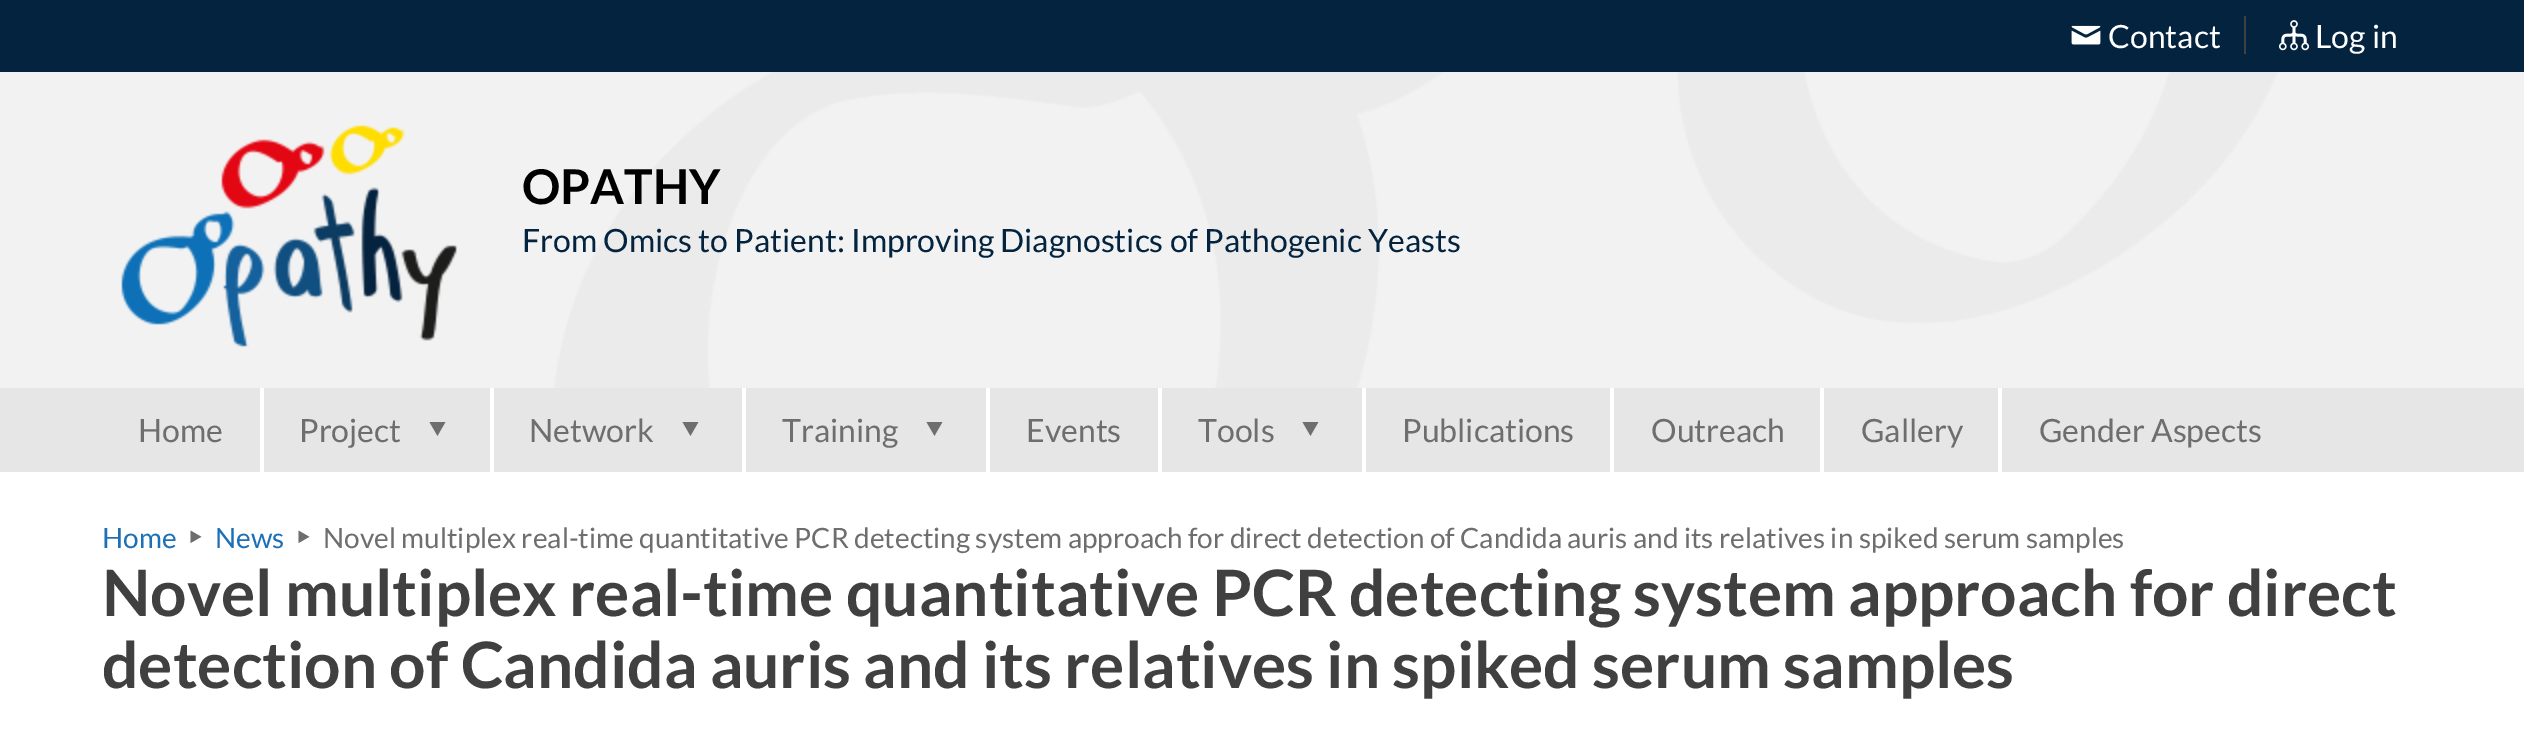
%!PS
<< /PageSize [2524 747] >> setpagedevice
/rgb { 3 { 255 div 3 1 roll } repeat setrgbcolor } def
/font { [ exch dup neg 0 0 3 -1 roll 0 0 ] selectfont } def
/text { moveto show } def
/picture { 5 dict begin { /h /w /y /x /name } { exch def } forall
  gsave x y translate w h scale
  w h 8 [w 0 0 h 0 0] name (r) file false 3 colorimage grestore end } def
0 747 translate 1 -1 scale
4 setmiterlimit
255 255 255 rgb
0 0 2524 747 rectfill
3 35 63 rgb
0 0 2524 72 rectfill
64 64 64 rgb
2244 16 2 38 rectfill
(img_01.rgb) 2071 25 30 20 picture
(img_02.rgb) 2279 20 30 31 picture
242 242 242 rgb
0 72 2524 316 rectfill
(img_03.rgb) 553 72 1727 316 picture
(img_04.rgb) 121 125 337 222 picture
230 230 230 rgb
0 388 2524 84 rectfill
255 255 255 rgb
260 388 4 84 rectfill
490 388 4 84 rectfill
742 388 4 84 rectfill
986 388 4 84 rectfill
1158 388 4 84 rectfill
1362 388 4 84 rectfill
1610 388 4 84 rectfill
1820 388 4 84 rectfill
1998 388 4 84 rectfill
/Lato-Regular 32 font
(Contact) 2108 48 text
(Log in) 2315 48 text
/Lato-Bold 48 font
0 0 0 rgb
(OPATHY) 522 204 text
/Lato-Regular 32 font
3 35 63 rgb
(From Omics to Patient: Improving Diagnostics of Pathogenic Yeasts) 522 252 text
110 110 110 rgb
(Home) 138 442 text
(Project) 299 442 text
/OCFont-Bold 32 font
(↓) 421 442 text
/Lato-Regular 32 font
(Network) 529 442 text
/OCFont-Bold 32 font
(↓) 674 442 text
/Lato-Regular 32 font
(Training) 782 442 text
/OCFont-Bold 32 font
(↓) 918 442 text
/Lato-Regular 32 font
(Events) 1026 442 text
(Tools) 1198 442 text
/OCFont-Bold 32 font
(↓) 1294 442 text
/Lato-Regular 32 font
(Publications) 1402 442 text
(Outreach) 1651 442 text
(Gallery) 1861 442 text
(Gender Aspects) 2039 442 text
/Lato-Regular 28 font
29 112 183 rgb
(Home) 102 548 text
/OCFont-Regular 28 font
110 110 110 rgb
(→) 182 548 text
/Lato-Regular 28 font
29 112 183 rgb
(News) 215 548 text
/OCFont-Regular 28 font
110 110 110 rgb
(→) 290 548 text
/Lato-Regular 28 font
(Novel multiplex real-time quantitative PCR detecting system approach for direct detection of Candida auris and its relatives in spiked serum samples) 323 548 text
/Lato-Bold 64 font
64 64 64 rgb
(Novel multiplex real-time quantitative PCR detecting system approach for direct) 102 616 text
(detection of Candida auris and its relatives in spiked serum samples) 102 688 text
showpage
